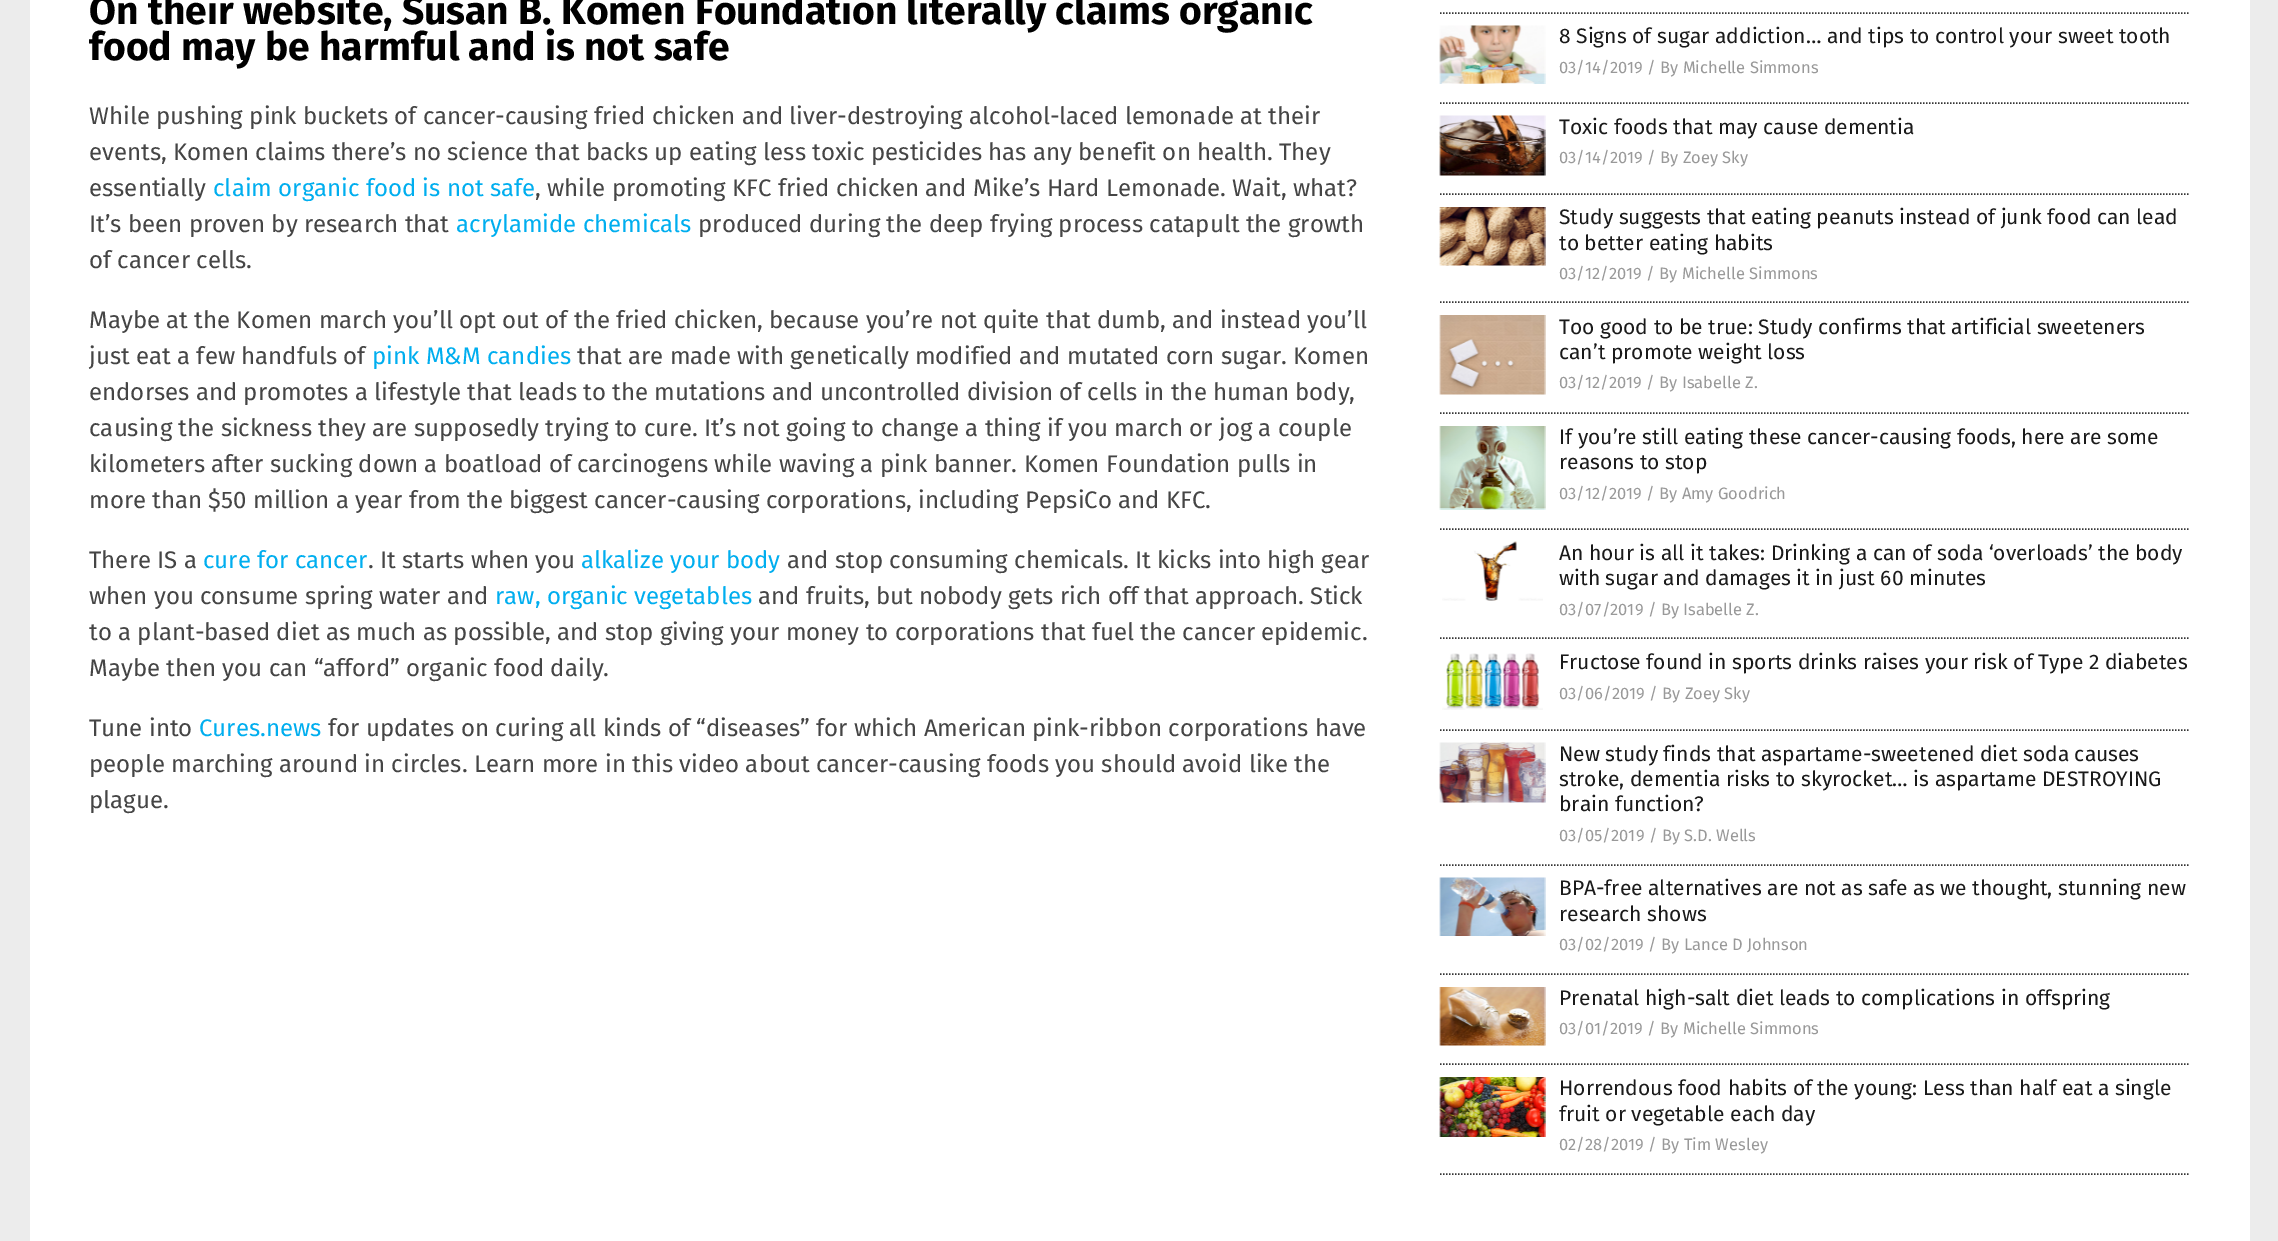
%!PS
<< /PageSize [2278 1241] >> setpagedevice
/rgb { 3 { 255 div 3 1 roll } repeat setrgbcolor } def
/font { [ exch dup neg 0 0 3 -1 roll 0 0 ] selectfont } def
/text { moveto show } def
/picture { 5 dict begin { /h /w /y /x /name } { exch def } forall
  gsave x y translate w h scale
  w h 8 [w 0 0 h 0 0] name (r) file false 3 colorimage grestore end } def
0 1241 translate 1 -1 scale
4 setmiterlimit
236 236 236 rgb
0 0 2278 1241 rectfill
255 255 255 rgb
30 0 2220 1241 rectfill
52 52 52 rgb
1.5 setlinewidth
[1.5 1.5] 0 setdash
1440 13 moveto 750 0 rlineto stroke
1440 103 moveto 750 0 rlineto stroke
(img_01.rgb) 1439 25 107 59 picture
1440 194 moveto 750 0 rlineto stroke
(img_02.rgb) 1439 115 107 61 picture
1440 302 moveto 750 0 rlineto stroke
(img_03.rgb) 1439 207 107 59 picture
1440 413 moveto 750 0 rlineto stroke
(img_04.rgb) 1439 315 107 80 picture
1440 529 moveto 750 0 rlineto stroke
(img_05.rgb) 1439 426 107 84 picture
1440 638 moveto 750 0 rlineto stroke
(img_06.rgb) 1442 541 101 60 picture
1440 730 moveto 750 0 rlineto stroke
(img_07.rgb) 1442 653 101 57 picture
1440 865 moveto 750 0 rlineto stroke
(img_08.rgb) 1439 742 107 61 picture
1440 974 moveto 750 0 rlineto stroke
(img_09.rgb) 1439 877 107 59 picture
1440 1064 moveto 750 0 rlineto stroke
(img_10.rgb) 1439 987 107 59 picture
1440 1174 moveto 750 0 rlineto stroke
(img_11.rgb) 1439 1077 107 60 picture
/FiraSans-Bold 39 font
0 0 0 rgb
(On their website, Susan B. Komen Foundation literally claims organic) 89 24 text
(food may be harmful and is not safe) 89 60 text
/FiraSans-Regular 24 font
69 69 69 rgb
(While pushing pink buckets of cancer-causing fried chicken and liver-destroying alcohol-laced lemonade at their) 89 124 text
(events, Komen claims there’s no science that backs up eating less toxic pesticides has any benefit on health. They) 89 160 text
(essentially) 89 196 text
0 174 239 rgb
(claim organic food is not safe) 213 196 text
69 69 69 rgb
(, while promoting KFC fried chicken and Mike’s Hard Lemonade. Wait, what?) 535 196 text
(It’s been proven by research that) 89 232 text
0 174 239 rgb
(acrylamide chemicals) 456 232 text
69 69 69 rgb
(produced during the deep frying process catapult the growth) 698 232 text
(of cancer cells.) 89 268 text
(Maybe at the Komen march you’ll opt out of the fried chicken, because you’re not quite that dumb, and instead you’ll) 89 328 text
(just eat a few handfuls of) 89 364 text
0 174 239 rgb
(pink M&M candies) 372 364 text
69 69 69 rgb
(that are made with genetically modified and mutated corn sugar. Komen) 577 364 text
(endorses and promotes a lifestyle that leads to the mutations and uncontrolled division of cells in the human body,) 89 400 text
(causing the sickness they are supposedly trying to cure. It’s not going to change a thing if you march or jog a couple) 89 436 text
(kilometers after sucking down a boatload of carcinogens while waving a pink banner. Komen Foundation pulls in) 89 472 text
(more than $50 million a year from the biggest cancer-causing corporations, including PepsiCo and KFC.) 89 508 text
(There IS a) 89 568 text
0 174 239 rgb
(cure for cancer) 203 568 text
69 69 69 rgb
(. It starts when you) 368 568 text
0 174 239 rgb
(alkalize your body) 581 568 text
69 69 69 rgb
(and stop consuming chemicals. It kicks into high gear) 787 568 text
(when you consume spring water and) 89 604 text
0 174 239 rgb
(raw, organic vegetables) 495 604 text
69 69 69 rgb
(and fruits, but nobody gets rich off that approach. Stick) 758 604 text
(to a plant-based diet as much as possible, and stop giving your money to corporations that fuel the cancer epidemic.) 89 640 text
(Maybe then you can “afford” organic food daily.) 89 676 text
(Tune into) 89 736 text
0 174 239 rgb
(Cures.news) 199 736 text
69 69 69 rgb
(for updates on curing all kinds of “diseases” for which American pink-ribbon corporations have) 328 736 text
(people marching around in circles. Learn more in this video about cancer-causing foods you should avoid like the) 89 772 text
(plague.) 89 808 text
/FiraSans-Regular 21 font
26 26 26 rgb
(8 Signs of sugar addiction… and tips to control your sweet tooth) 1559 43 text
/FiraSans-Regular 16.5 font
153 153 153 rgb
(03/14/2019 / By Michelle Simmons) 1559 73 text
/FiraSans-Regular 21 font
26 26 26 rgb
(Toxic foods that may cause dementia) 1559 134 text
/FiraSans-Regular 16.5 font
153 153 153 rgb
(03/14/2019 / By Zoey Sky) 1559 163 text
/FiraSans-Regular 21 font
26 26 26 rgb
(Study suggests that eating peanuts instead of junk food can lead) 1559 224 text
(to better eating habits) 1559 250 text
/FiraSans-Regular 16.5 font
153 153 153 rgb
(03/12/2019 / By Michelle Simmons) 1559 279 text
/FiraSans-Regular 21 font
26 26 26 rgb
(Too good to be true: Study confirms that artificial sweeteners) 1559 334 text
(can’t promote weight loss) 1559 359 text
/FiraSans-Regular 16.5 font
153 153 153 rgb
(03/12/2019 / By Isabelle Z.) 1559 388 text
/FiraSans-Regular 21 font
26 26 26 rgb
(If you’re still eating these cancer-causing foods, here are some) 1559 444 text
(reasons to stop) 1559 469 text
/FiraSans-Regular 16.5 font
153 153 153 rgb
(03/12/2019 / By Amy Goodrich) 1559 499 text
/FiraSans-Regular 21 font
26 26 26 rgb
(An hour is all it takes: Drinking a can of soda ‘overloads’ the body) 1559 560 text
(with sugar and damages it in just 60 minutes) 1559 585 text
/FiraSans-Regular 16.5 font
153 153 153 rgb
(03/07/2019 / By Isabelle Z.) 1559 615 text
/FiraSans-Regular 21 font
26 26 26 rgb
(Fructose found in sports drinks raises your risk of Type 2 diabetes) 1559 669 text
/FiraSans-Regular 16.5 font
153 153 153 rgb
(03/06/2019 / By Zoey Sky) 1559 699 text
/FiraSans-Regular 21 font
26 26 26 rgb
(New study finds that aspartame-sweetened diet soda causes) 1559 761 text
(stroke, dementia risks to skyrocket… is aspartame DESTROYING) 1559 786 text
(brain function?) 1559 811 text
/FiraSans-Regular 16.5 font
153 153 153 rgb
(03/05/2019 / By S.D. Wells) 1559 841 text
/FiraSans-Regular 21 font
26 26 26 rgb
(BPA-free alternatives are not as safe as we thought, stunning new) 1559 895 text
(research shows) 1559 921 text
/FiraSans-Regular 16.5 font
153 153 153 rgb
(03/02/2019 / By Lance D Johnson) 1559 950 text
/FiraSans-Regular 21 font
26 26 26 rgb
(Prenatal high-salt diet leads to complications in offspring) 1559 1005 text
/FiraSans-Regular 16.5 font
153 153 153 rgb
(03/01/2019 / By Michelle Simmons) 1559 1034 text
/FiraSans-Regular 21 font
26 26 26 rgb
(Horrendous food habits of the young: Less than half eat a single) 1559 1095 text
(fruit or vegetable each day) 1559 1121 text
/FiraSans-Regular 16.5 font
153 153 153 rgb
(02/28/2019 / By Tim Wesley) 1559 1150 text
showpage
